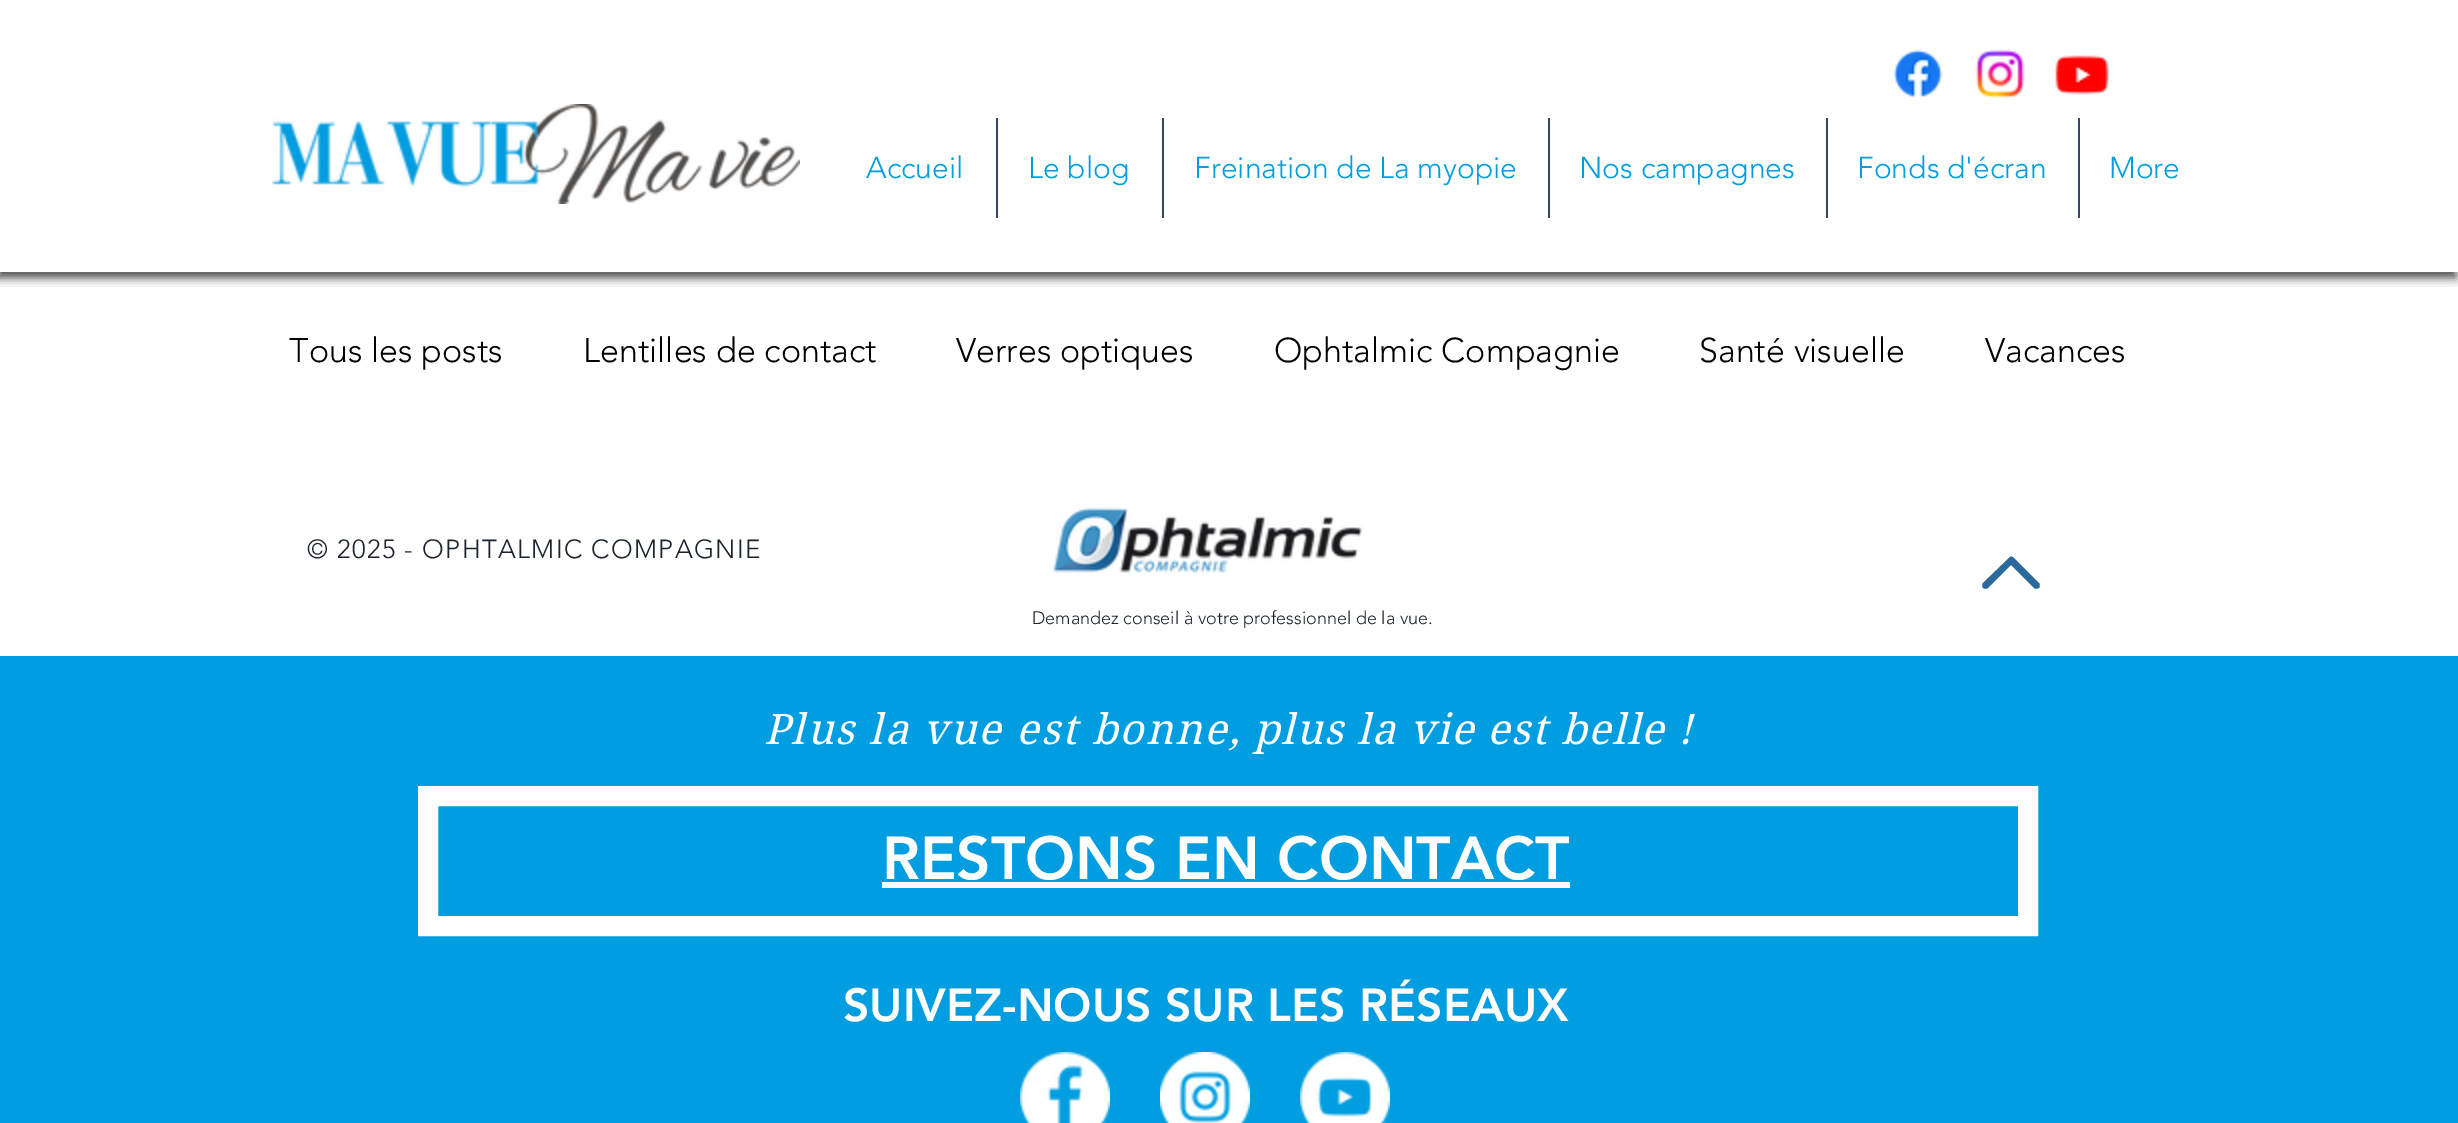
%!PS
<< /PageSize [2458 1123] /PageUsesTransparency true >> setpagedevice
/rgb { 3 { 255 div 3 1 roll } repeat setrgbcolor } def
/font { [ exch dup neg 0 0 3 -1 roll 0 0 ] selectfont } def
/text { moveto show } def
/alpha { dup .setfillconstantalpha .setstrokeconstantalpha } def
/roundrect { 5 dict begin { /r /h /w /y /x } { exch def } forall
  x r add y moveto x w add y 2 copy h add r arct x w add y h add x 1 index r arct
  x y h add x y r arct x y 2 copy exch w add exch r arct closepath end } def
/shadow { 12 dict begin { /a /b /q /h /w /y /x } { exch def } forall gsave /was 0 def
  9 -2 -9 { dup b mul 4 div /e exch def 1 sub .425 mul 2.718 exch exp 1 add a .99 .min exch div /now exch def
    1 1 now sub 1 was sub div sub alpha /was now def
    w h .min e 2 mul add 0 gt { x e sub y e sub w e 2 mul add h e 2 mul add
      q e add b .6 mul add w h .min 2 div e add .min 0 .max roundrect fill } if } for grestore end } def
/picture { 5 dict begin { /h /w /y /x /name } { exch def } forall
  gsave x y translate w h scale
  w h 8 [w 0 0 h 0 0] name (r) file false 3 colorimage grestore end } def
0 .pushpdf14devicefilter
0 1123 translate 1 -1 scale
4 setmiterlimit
255 255 255 rgb
0 0 2458 1123 rectfill
gsave
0 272 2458 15 rectclip
0 0 0 rgb
-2 6 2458 272 0 5 0.7 shadow
grestore
(img_01.rgb) 1893 49 50 49 picture
(img_02.rgb) 1975 49 50 50 picture
(img_03.rgb) 2055 55 54 40 picture
(img_04.rgb) 272 104 528 100 picture
57 71 94 rgb
996 118 2 100 rectfill
1162 118 2 100 rectfill
1548 118 2 100 rectfill
1826 118 2 100 rectfill
2078 118 2 100 rectfill
(img_05.rgb) 1053 507 310 66 picture
43 104 156 rgb
1988 588 moveto 23 -23 rlineto 23 23 rlineto 1 1 3 1 5 0 rcurveto 1 -1 1 -4 0 -5 rcurveto -25 -25 rlineto -2 -2 -4 -2 -5 0 rcurveto -26 25 rlineto -1 1 -1 3 0 5 rcurveto 2 1 4 1 5 0 rcurveto closepath fill
0 157 224 rgb
0 656 2458 467 rectfill
255 255 255 rgb
20 setlinewidth
428 796 1600 130 rectstroke
882 882 688 6 rectfill
(img_06.rgb) 1020 1052 90 71 picture
(img_07.rgb) 1160 1052 90 71 picture
(img_08.rgb) 1300 1052 90 71 picture
/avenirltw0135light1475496-Light 30 font
0 157 224 rgb
(Accueil) 866 178 text
(Le blog) 1028 178 text
(Freination de La myopie) 1194 178 text
(Nos campagnes) 1579 178 text
(Fonds d'écran) 1857 178 text
(More) 2109 178 text
/avenirltw0135light1475496-Light 34 font
0 0 0 rgb
(Tous les posts) 289 362 text
(Lentilles de contact) 583 362 text
(Verres optiques) 956 362 text
(Ophtalmic Compagnie) 1274 362 text
(Santé visuelle) 1699 362 text
(Vacances) 1985 362 text
/avenirltw0135light1475496-Light 26 font
28 36 47 rgb
307 558 moveto 1.3 0 (© 2025 - OPHTALMIC COMPAGNIE) ashow
/avenirltw0135light1475496-Light 18 font
(Demandez conseil à votre professionnel de la vue.) 1032 624 text
/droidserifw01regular-Italic 42 font
255 255 255 rgb
764 744 moveto 2.1 0 (Plus la vue est bonne,) ashow
1254 744 moveto 1.6 0 (plus la vie est belle !) ashow
/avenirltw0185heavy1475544-Black 60 font
(RESTONS EN CONTACT) 882 879 text
/avenirltw0185heavy1475544-Black 46 font
(SUIVEZ-NOUS SUR LES RÉSEAUX) 843 1021 text
.poppdf14devicefilter showpage
